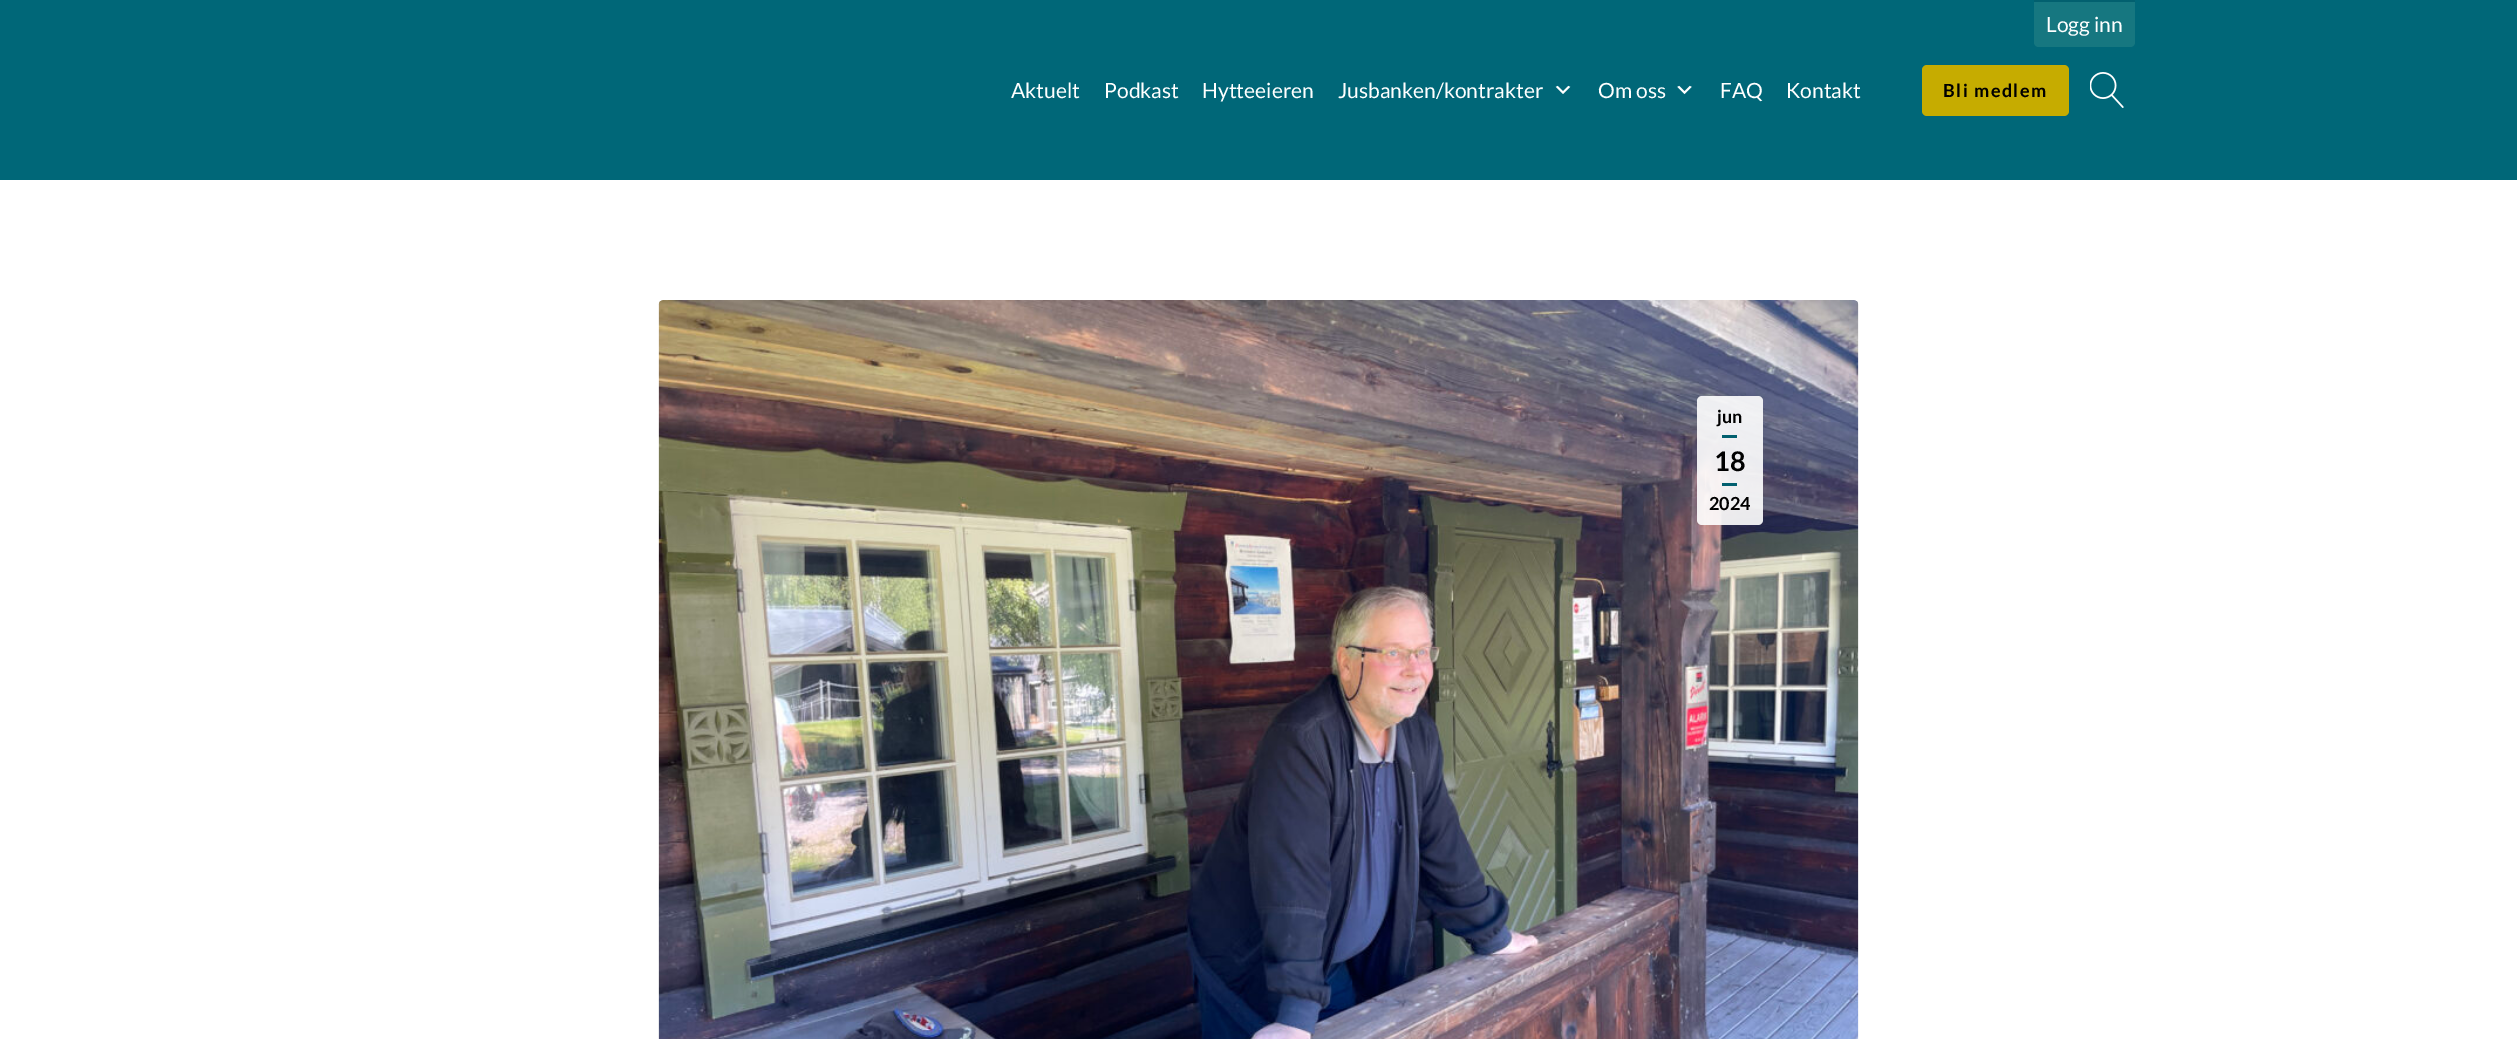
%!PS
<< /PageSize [2517 1039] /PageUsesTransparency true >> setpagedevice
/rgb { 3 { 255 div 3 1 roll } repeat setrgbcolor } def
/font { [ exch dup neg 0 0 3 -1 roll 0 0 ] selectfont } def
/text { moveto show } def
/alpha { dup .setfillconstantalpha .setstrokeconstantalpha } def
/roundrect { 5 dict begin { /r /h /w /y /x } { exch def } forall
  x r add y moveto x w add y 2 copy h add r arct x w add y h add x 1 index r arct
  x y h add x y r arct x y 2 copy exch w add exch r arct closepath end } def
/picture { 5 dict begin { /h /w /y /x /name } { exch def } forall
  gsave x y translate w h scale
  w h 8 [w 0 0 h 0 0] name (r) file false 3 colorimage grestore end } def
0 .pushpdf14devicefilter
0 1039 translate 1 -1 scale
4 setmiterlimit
255 255 255 rgb
0 0 2517 1039 rectfill
0 103 120 rgb
0 0 2517 180 rectfill
0.8 alpha
28 123 130 rgb
2034 0 moveto 101 0 rlineto 0 42 rlineto 0 3 -2 5 -5 5 rcurveto -91 0 rlineto -3 0 -5 -2 -5 -5 rcurveto closepath fill
1 alpha
2 96 111 rgb
2034 0 101 2 rectfill
(img_01.rgb) 1555 85 16 9 picture
(img_02.rgb) 1677 85 15 10 picture
198 172 0 rgb
1922 65 147 51 5 roundrect fill
(img_03.rgb) 2090 72 34 36 picture
(img_04.rgb) 658 300 1201 739 picture
0.9 alpha
255 255 255 rgb
1697 396 66 129 5 roundrect fill
1 alpha
2 96 111 rgb
1722 435 15 3 rectfill
1722 483 15 3 rectfill
/Lato-Regular 21 font
255 255 255 rgb
(Logg inn) 2046 32 text
(Aktuelt) 1011 98 text
(Podkast) 1104 98 text
(Hytteeieren) 1202 98 text
(Jusbanken/kontrakter) 1338 98 text
(Om oss) 1598 98 text
(FAQ) 1720 98 text
(Kontakt) 1786 98 text
/Lato-Bold 18 font
0 0 0 rgb
1943 97 moveto 1.5 0 (Bli medlem) ashow
(jun) 1717 423 text
/Lato-Bold 27 font
(18) 1714 471 text
/Lato-Bold 18 font
(2024) 1709 510 text
.poppdf14devicefilter showpage
